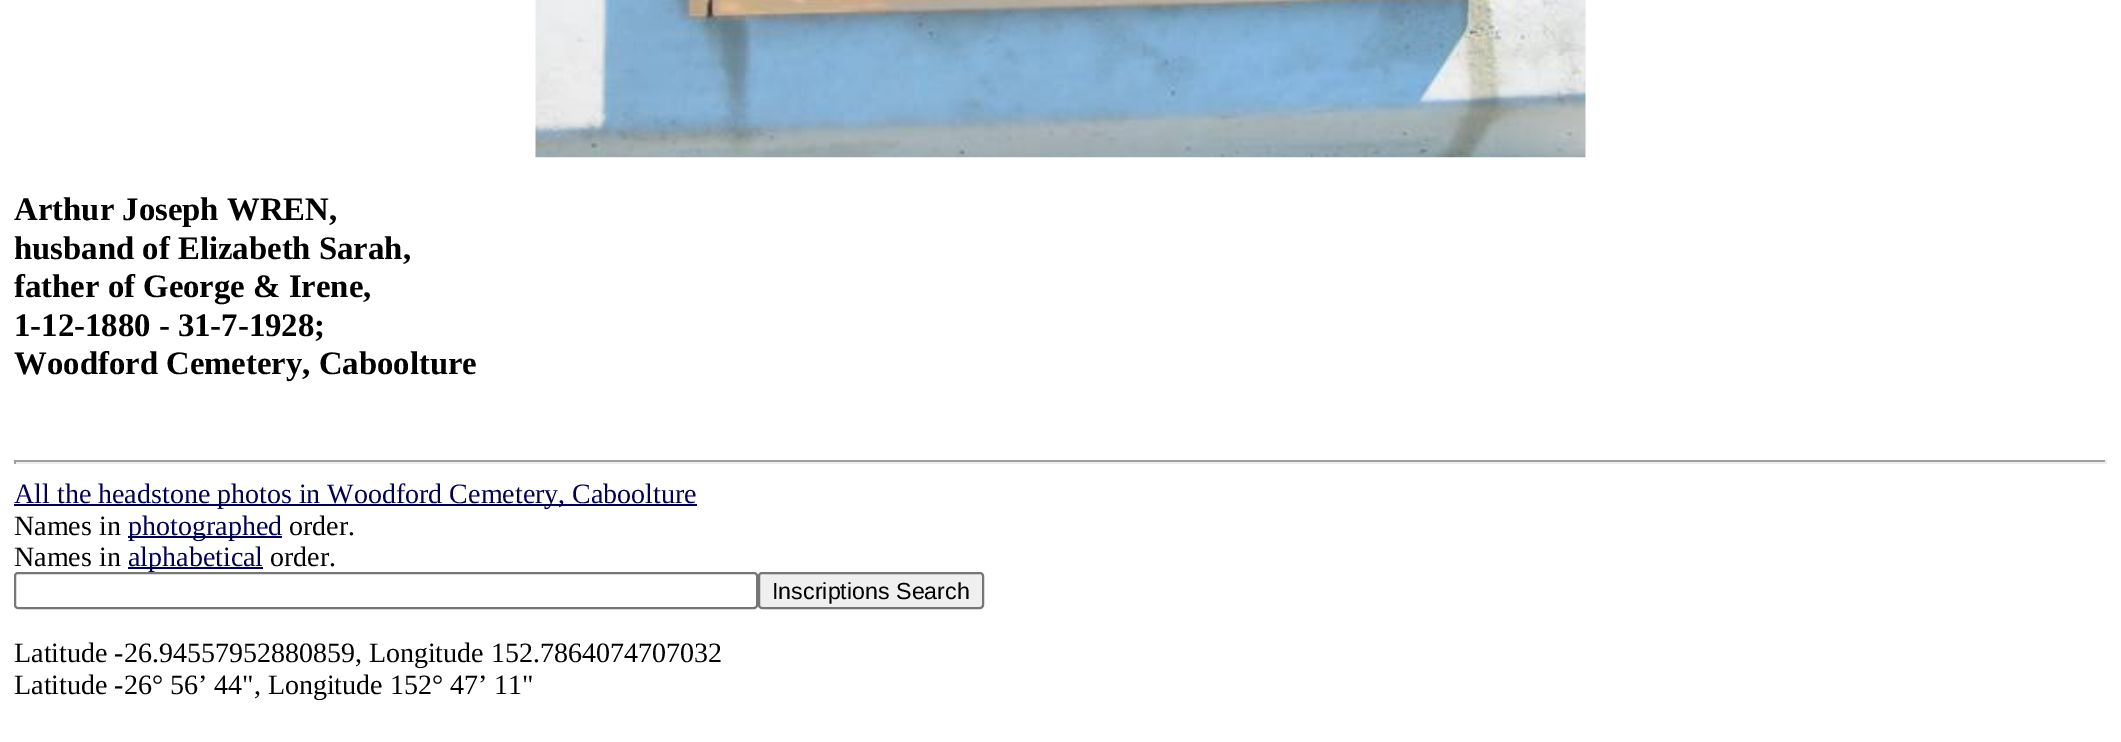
%!PS
<< /PageSize [2121 742] >> setpagedevice
/rgb { 3 { 255 div 3 1 roll } repeat setrgbcolor } def
/font { [ exch dup neg 0 0 3 -1 roll 0 0 ] selectfont } def
/text { moveto show } def
/roundrect { 5 dict begin { /r /h /w /y /x } { exch def } forall
  x r add y moveto x w add y 2 copy h add r arct x w add y h add x 1 index r arct
  x y h add x y r arct x y 2 copy exch w add exch r arct closepath end } def
/picture { 5 dict begin { /h /w /y /x /name } { exch def } forall
  gsave x y translate w h scale
  w h 8 [w 0 0 h 0 0] name (r) file false 3 colorimage grestore end } def
0 742 translate 1 -1 scale
4 setmiterlimit
255 255 255 rgb
0 0 2121 742 rectfill
(img_01.rgb) 535 0 1051 158 picture
159 159 159 rgb
14 460 2093 2 rectfill
238 238 238 rgb
2105 460 2 4 rectfill
14 462 2093 2 rectfill
159 159 159 rgb
14 460 2 4 rectfill
0 0 85 rgb
14 504 683 2 rectfill
128 536 154 2 rectfill
128 567 135 2 rectfill
118 118 118 rgb
2 setlinewidth
15 573 742 35 3 roundrect stroke
239 239 239 rgb
759 573 224 35 3 roundrect gsave fill grestore
118 118 118 rgb
stroke
/LiberationSerif-Bold 32.75 font
0 0 0 rgb
(Arthur Joseph WREN,) 14 220 text
(husband of Elizabeth Sarah,) 14 259 text
(father of George & Irene,) 14 297 text
(1-12-1880 - 31-7-1928;) 14 336 text
(Woodford Cemetery, Caboolture) 14 374 text
/LiberationSerif-Regular 28 font
0 0 85 rgb
(All the headstone photos in Woodford Cemetery, Caboolture) 14 503 text
0 0 0 rgb
(Names in) 14 535 text
0 0 85 rgb
(photographed) 128 535 text
0 0 0 rgb
(order.) 289 535 text
(Names in) 14 566 text
0 0 85 rgb
(alphabetical) 128 566 text
0 0 0 rgb
(order.) 270 566 text
/LiberationSans-Regular 23.25 font
(Inscriptions Search) 772 599 text
/LiberationSerif-Regular 28 font
(Latitude -26.94557952880859, Longitude 152.7864074707032) 14 662 text
(Latitude -26° 56’ 44", Longitude 152° 47’ 11") 14 694 text
showpage
